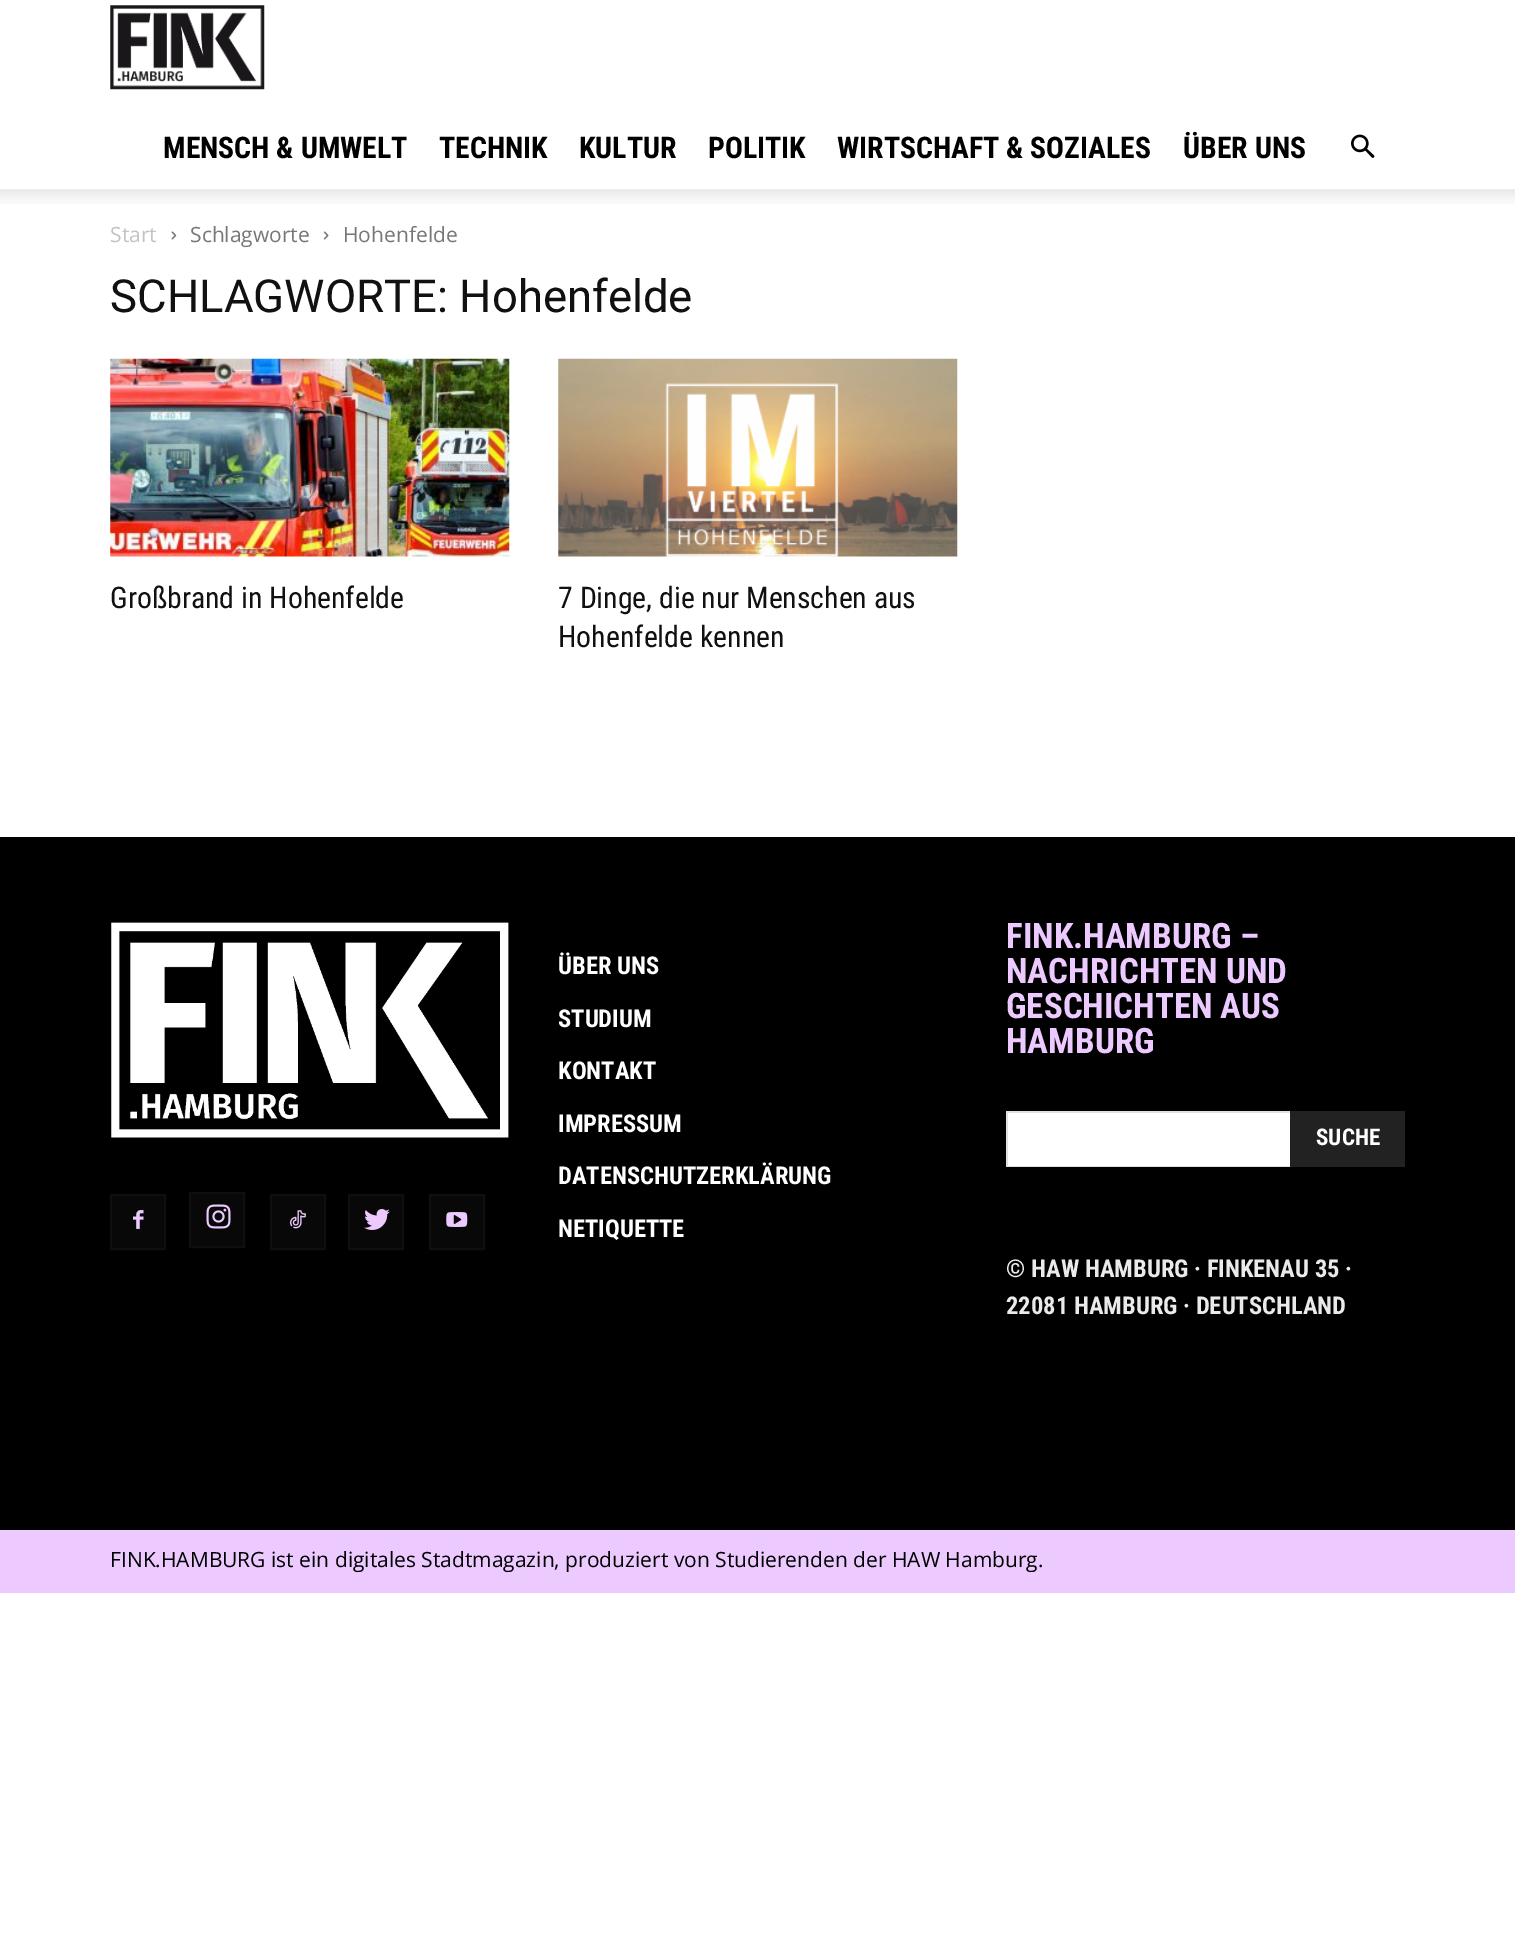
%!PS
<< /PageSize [1515 1943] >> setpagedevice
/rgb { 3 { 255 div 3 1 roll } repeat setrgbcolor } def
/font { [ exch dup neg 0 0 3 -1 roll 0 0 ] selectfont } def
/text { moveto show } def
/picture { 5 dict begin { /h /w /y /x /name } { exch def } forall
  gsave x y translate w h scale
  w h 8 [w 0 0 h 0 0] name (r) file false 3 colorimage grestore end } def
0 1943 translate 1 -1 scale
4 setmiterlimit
255 255 255 rgb
0 0 1515 1943 rectfill
(img_01.rgb) 110 5 155 85 picture
(img_02.rgb) 1351 134 24 24 picture
(img_03.rgb) 0 189 1515 15 picture
(img_04.rgb) 171 231 6 9 picture
(img_05.rgb) 323 231 6 9 picture
(img_06.rgb) 110 358 400 199 picture
(img_07.rgb) 558 358 400 199 picture
0 0 0 rgb
0 837 1515 693 rectfill
(img_08.rgb) 111 922 398 216 picture
8 8 8 rgb
112 1196 52 52 rectfill
(img_09.rgb) 133 1210 11 19 picture
15 15 15 rgb
2 setlinewidth
111 1195 54 54 rectstroke
8 8 8 rgb
191 1194 52 52 rectfill
(img_10.rgb) 206 1204 25 25 picture
15 15 15 rgb
190 1193 54 54 rectstroke
8 8 8 rgb
272 1196 52 52 rectfill
(img_11.rgb) 290 1210 16 19 picture
15 15 15 rgb
271 1195 54 54 rectstroke
8 8 8 rgb
350 1196 52 52 rectfill
(img_12.rgb) 364 1209 26 21 picture
15 15 15 rgb
349 1195 54 54 rectstroke
8 8 8 rgb
431 1196 52 52 rectfill
(img_13.rgb) 446 1212 22 15 picture
15 15 15 rgb
430 1195 54 54 rectstroke
255 255 255 rgb
1008 1113 282 53 rectfill
225 225 225 rgb
1006 1111 284 2 rectfill
1006 1166 284 1 rectfill
1006 1111 2 56 rectfill
34 34 34 rgb
1290 1111 115 56 rectfill
236 202 255 rgb
0 1530 1515 63 rectfill
/RobotoCondensed-Bold 29.75 font
0 0 0 rgb
(MENSCH & UMWELT) 163 158 text
(TECHNIK) 439 158 text
(KULTUR) 579 158 text
(POLITIK) 708 158 text
(WIRTSCHAFT & SOZIALES) 837 158 text
(ÜBER UNS) 1183 158 text
/OpenSans-Regular 21 font
195 195 195 rgb
(Start) 110 242 text
119 119 119 rgb
(Schlagworte) 190 242 text
(Hohenfelde) 343 242 text
/Roboto-Regular 45.5 font
17 17 17 rgb
(SCHLAGWORTE: Hohenfelde) 110 312 text
/RobotoCondensed-Regular 29.75 font
(Großbrand in Hohenfelde) 110 608 text
(7 Dinge, die nur Menschen aus) 558 608 text
(Hohenfelde kennen) 558 647 text
/RobotoCondensed-Bold 24.5 font
255 255 255 rgb
(ÜBER UNS) 558 974 text
(STUDIUM) 558 1027 text
(KONTAKT) 558 1079 text
(IMPRESSUM) 558 1132 text
(DATENSCHUTZERKLÄRUNG) 558 1184 text
(NETIQUETTE) 558 1237 text
/RobotoCondensed-Bold 35 font
236 202 255 rgb
(FINK.HAMBURG –) 1006 948 text
(NACHRICHTEN UND) 1006 983 text
(GESCHICHTEN AUS) 1006 1018 text
(HAMBURG) 1006 1053 text
/RobotoCondensed-Bold 23 font
255 255 255 rgb
(SUCHE) 1316 1145 text
/RobotoCondensed-Bold 24.5 font
234 234 234 rgb
(© HAW HAMBURG · FINKENAU 35 ·) 1006 1277 text
(22081 HAMBURG · DEUTSCHLAND) 1006 1314 text
/OpenSans-Regular 21 font
0 0 0 rgb
(FINK.HAMBURG ist ein digitales Stadtmagazin, produziert von Studierenden der HAW Hamburg.) 110 1567 text
showpage
